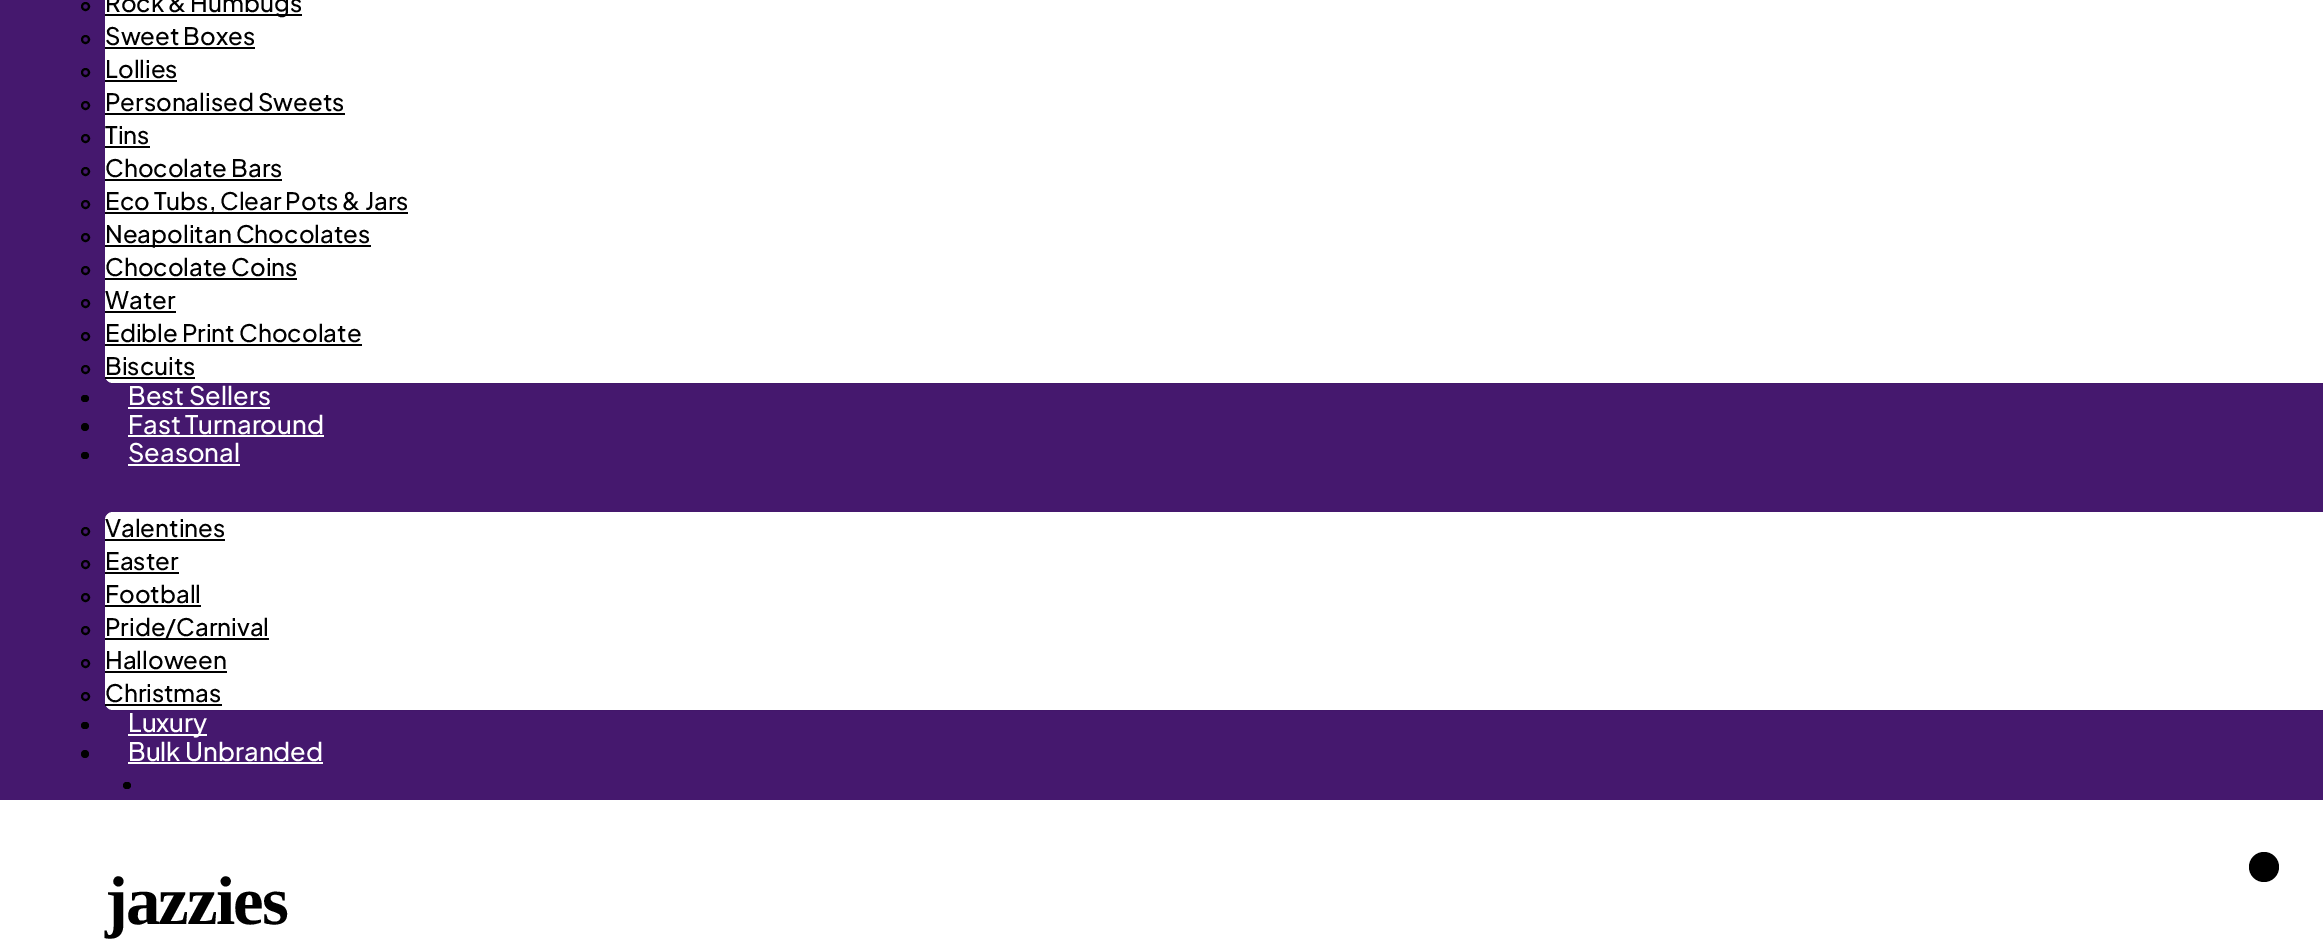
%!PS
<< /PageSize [2323 950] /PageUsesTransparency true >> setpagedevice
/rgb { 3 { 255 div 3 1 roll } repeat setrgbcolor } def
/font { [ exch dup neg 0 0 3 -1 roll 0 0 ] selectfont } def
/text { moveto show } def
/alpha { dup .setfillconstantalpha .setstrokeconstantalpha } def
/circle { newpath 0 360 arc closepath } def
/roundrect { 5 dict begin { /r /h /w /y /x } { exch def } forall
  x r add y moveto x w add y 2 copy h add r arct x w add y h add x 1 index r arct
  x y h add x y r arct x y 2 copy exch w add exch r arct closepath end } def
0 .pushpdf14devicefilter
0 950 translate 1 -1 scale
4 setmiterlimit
255 255 255 rgb
0 0 2323 950 rectfill
69 24 110 rgb
0 0 2323 800 rectfill
0.04 alpha
0 0 0 rgb
105 375 moveto 0 1 rlineto 0 4 4 8 8 8 rcurveto 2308 0 rlineto 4 0 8 -4 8 -8 rcurveto 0 -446 rlineto -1 -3 rlineto 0 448 rlineto 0 4 -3 7 -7 7 rcurveto -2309 0 rlineto -4 0 -7 -3 -7 -7 rcurveto closepath fill
1 alpha
255 255 255 rgb
105 -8 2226 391 8 roundrect fill
0 0 0 rgb
2 setlinewidth
85.5 6.5 3.5 circle stroke
105 14 197 2 rectfill
85.5 39.5 3.5 circle stroke
105 47 150 2 rectfill
85.5 72.5 3.5 circle stroke
105 80 72 2 rectfill
85.5 105.5 3.5 circle stroke
105 113 240 2 rectfill
85.5 138.5 3.5 circle stroke
105 146 45 2 rectfill
85.5 171.5 3.5 circle stroke
105 179 177 2 rectfill
85.5 204.5 3.5 circle stroke
105 212 303 2 rectfill
85.5 237.5 3.5 circle stroke
105 245 266 2 rectfill
85.5 270.5 3.5 circle stroke
105 278 192 2 rectfill
85.5 303.5 3.5 circle stroke
105 311 71 2 rectfill
85.5 336.5 3.5 circle stroke
105 344 257 2 rectfill
85.5 369.5 3.5 circle stroke
105 377 90 2 rectfill
81 395 8 7 3.5 roundrect fill
255 255 255 rgb
128 407 142 2 rectfill
0 0 0 rgb
85 427 4 circle fill
255 255 255 rgb
128 435 196 2 rectfill
0 0 0 rgb
81 452 8 7 3.5 roundrect fill
255 255 255 rgb
128 464 112 2 rectfill
0.04 alpha
0 0 0 rgb
105 702 moveto 0 1 rlineto 0 4 4 8 8 8 rcurveto 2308 0 rlineto 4 0 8 -4 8 -8 rcurveto 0 -182 rlineto -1 -3 rlineto 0 184 rlineto 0 4 -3 8 -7 8 rcurveto -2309 0 rlineto -4 0 -7 -4 -7 -8 rcurveto closepath fill
1 alpha
255 255 255 rgb
105 512 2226 198 8 roundrect fill
0 0 0 rgb
85.5 531.5 3.5 circle stroke
105 539 120 2 rectfill
85.5 564.5 3.5 circle stroke
105 572 74 2 rectfill
85.5 597.5 3.5 circle stroke
105 605 96 2 rectfill
85.5 630.5 3.5 circle stroke
105 638 164 2 rectfill
85.5 663.5 3.5 circle stroke
105 671 122 2 rectfill
85.5 696.5 3.5 circle stroke
105 704 117 2 rectfill
81 722 8 7 3.5 roundrect fill
255 255 255 rgb
128 734 79 2 rectfill
0 0 0 rgb
85 754 4 circle fill
255 255 255 rgb
128 762 195 2 rectfill
0 0 0 rgb
123 782 8 7 3.5 roundrect fill
2264 867 15 circle fill
/PlusJakartaSans-Medium 24 font
(Rock & Humbugs) 105 12 text
(Sweet Boxes) 105 45 text
(Lollies) 105 78 text
(Personalised Sweets) 105 111 text
(Tins) 105 144 text
(Chocolate Bars) 105 177 text
(Eco Tubs, Clear Pots & Jars) 105 210 text
(Neapolitan Chocolates) 105 243 text
(Chocolate Coins) 105 276 text
(Water) 105 309 text
(Edible Print Chocolate) 105 342 text
(Biscuits) 105 375 text
/PlusJakartaSans-Medium 25.5 font
255 255 255 rgb
(Best Sellers) 128 405 text
(Fast Turnaround) 128 434 text
(Seasonal) 128 462 text
/PlusJakartaSans-Medium 24 font
0 0 0 rgb
(Valentines) 105 537 text
(Easter) 105 570 text
(Football) 105 603 text
(Pride/Carnival) 105 636 text
(Halloween) 105 669 text
(Christmas) 105 702 text
/PlusJakartaSans-Medium 25.5 font
255 255 255 rgb
(Luxury) 128 732 text
(Bulk Unbranded) 128 761 text
/LiberationSerif-Bold 69 font
0 0 0 rgb
105 924 moveto -2 0 (jazzies) ashow
.poppdf14devicefilter showpage
